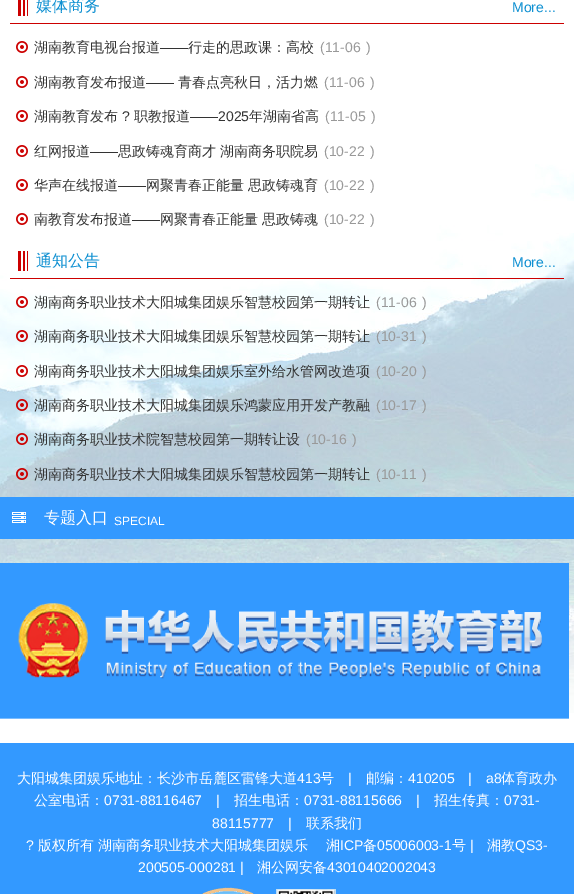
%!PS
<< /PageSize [574 894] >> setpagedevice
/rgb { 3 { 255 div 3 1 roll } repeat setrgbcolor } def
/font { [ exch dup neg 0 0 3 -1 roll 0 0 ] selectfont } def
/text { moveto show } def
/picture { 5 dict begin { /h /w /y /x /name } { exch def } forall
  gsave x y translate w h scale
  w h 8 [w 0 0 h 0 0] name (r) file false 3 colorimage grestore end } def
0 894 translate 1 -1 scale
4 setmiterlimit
255 255 255 rgb
0 0 574 894 rectfill
(img_01.rgb) 0 164 574 549 picture
204 0 0 rgb
10 23 554 1 rectfill
18 0 3 16 rectfill
23 0 2 16 rectfill
27 0 1 16 rectfill
(img_02.rgb) 16 41 12 12 picture
(img_02.rgb) 16 76 12 12 picture
(img_02.rgb) 16 110 12 12 picture
(img_02.rgb) 16 145 12 12 picture
(img_02.rgb) 16 179 12 12 picture
(img_02.rgb) 16 213 12 12 picture
10 278 554 1 rectfill
18 251 3 20 rectfill
23 251 2 20 rectfill
27 251 1 20 rectfill
(img_03.rgb) 16 296 12 12 picture
(img_04.rgb) 16 330 12 12 picture
(img_05.rgb) 16 365 12 12 picture
(img_06.rgb) 16 399 12 12 picture
(img_07.rgb) 16 433 12 12 picture
(img_08.rgb) 16 468 12 12 picture
51 153 255 rgb
0 497 574 42 rectfill
(img_09.rgb) 12 512 14 11 picture
(img_10.rgb) 0 563 569 156 picture
0 743 574 151 rectfill
(img_11.rgb) 202 887 52 7 picture
(img_12.rgb) 276 889 60 5 picture
/WenQuanYiZenHei-Medium 16 font
14 144 210 rgb
(媒体商务) 36 11 text
/LiberationSans-Regular 14 font
(More...) 512 12 text
/WenQuanYiZenHei-Medium 14 font
51 51 51 rgb
(湖南教育电视台报道) 34 52 text
/LiberationSans-Regular 14 font
(——) 160 52 text
/WenQuanYiZenHei-Medium 14 font
(行走的思政课：高校) 188 52 text
/LiberationSans-Regular 14 font
153 153 153 rgb
(\(11-06) 320 52 text
(\)) 366 52 text
/WenQuanYiZenHei-Medium 14 font
51 51 51 rgb
(湖南教育发布报道) 34 87 text
/LiberationSans-Regular 14 font
(——) 146 87 text
/WenQuanYiZenHei-Medium 14 font
(青春点亮秋日，活力燃) 178 87 text
/LiberationSans-Regular 14 font
153 153 153 rgb
(\(11-06) 324 87 text
(\)) 370 87 text
/WenQuanYiZenHei-Medium 14 font
51 51 51 rgb
(湖南教育发布) 34 121 text
/LiberationSans-Regular 14 font
(?) 122 121 text
/WenQuanYiZenHei-Medium 14 font
(职教报道) 134 121 text
/LiberationSans-Regular 14 font
(——2025) 190 121 text
/WenQuanYiZenHei-Medium 14 font
(年湖南省高) 249 121 text
/LiberationSans-Regular 14 font
153 153 153 rgb
(\(11-05) 325 121 text
(\)) 371 121 text
/WenQuanYiZenHei-Medium 14 font
51 51 51 rgb
(红网报道) 34 156 text
/LiberationSans-Regular 14 font
(——) 90 156 text
/WenQuanYiZenHei-Medium 14 font
(思政铸魂育商才 湖南商务职院易) 118 156 text
/LiberationSans-Regular 14 font
153 153 153 rgb
(\(10-22) 324 156 text
(\)) 370 156 text
/WenQuanYiZenHei-Medium 14 font
51 51 51 rgb
(华声在线报道) 34 190 text
/LiberationSans-Regular 14 font
(——) 118 190 text
/WenQuanYiZenHei-Medium 14 font
(网聚青春正能量 思政铸魂育) 146 190 text
/LiberationSans-Regular 14 font
153 153 153 rgb
(\(10-22) 324 190 text
(\)) 370 190 text
/WenQuanYiZenHei-Medium 14 font
51 51 51 rgb
(南教育发布报道) 34 224 text
/LiberationSans-Regular 14 font
(——) 132 224 text
/WenQuanYiZenHei-Medium 14 font
(网聚青春正能量 思政铸魂) 160 224 text
/LiberationSans-Regular 14 font
153 153 153 rgb
(\(10-22) 324 224 text
(\)) 370 224 text
/WenQuanYiZenHei-Medium 16 font
14 144 210 rgb
(通知公告) 36 266 text
/LiberationSans-Regular 14 font
(More...) 512 267 text
/WenQuanYiZenHei-Medium 14 font
51 51 51 rgb
(湖南商务职业技术大阳城集团娱乐智慧校园第一期转让) 34 307 text
/LiberationSans-Regular 14 font
153 153 153 rgb
(\(11-06) 376 307 text
(\)) 422 307 text
/WenQuanYiZenHei-Medium 14 font
51 51 51 rgb
(湖南商务职业技术大阳城集团娱乐智慧校园第一期转让) 34 341 text
/LiberationSans-Regular 14 font
153 153 153 rgb
(\(10-31) 376 341 text
(\)) 422 341 text
/WenQuanYiZenHei-Medium 14 font
51 51 51 rgb
(湖南商务职业技术大阳城集团娱乐室外给水管网改造项) 34 376 text
/LiberationSans-Regular 14 font
153 153 153 rgb
(\(10-20) 376 376 text
(\)) 422 376 text
/WenQuanYiZenHei-Medium 14 font
51 51 51 rgb
(湖南商务职业技术大阳城集团娱乐鸿蒙应用开发产教融) 34 410 text
/LiberationSans-Regular 14 font
153 153 153 rgb
(\(10-17) 376 410 text
(\)) 422 410 text
/WenQuanYiZenHei-Medium 14 font
51 51 51 rgb
(湖南商务职业技术院智慧校园第一期转让设) 34 444 text
/LiberationSans-Regular 14 font
153 153 153 rgb
(\(10-16) 306 444 text
(\)) 352 444 text
/WenQuanYiZenHei-Medium 14 font
51 51 51 rgb
(湖南商务职业技术大阳城集团娱乐智慧校园第一期转让) 34 479 text
/LiberationSans-Regular 14 font
153 153 153 rgb
(\(10-11) 376 479 text
(\)) 422 479 text
/WenQuanYiZenHei-Medium 16 font
255 255 255 rgb
(专题入口) 44 523 text
/LiberationSans-Regular 12 font
(SPECIAL) 114 525 text
/WenQuanYiZenHei-Medium 14 font
(大阳城集团娱乐地址：长沙市岳麓区雷锋大道) 17 783 text
/LiberationSans-Regular 14 font
(413) 297 783 text
/WenQuanYiZenHei-Medium 14 font
(号) 320 783 text
/LiberationSans-Regular 14 font
(|) 348 783 text
/WenQuanYiZenHei-Medium 14 font
(邮编：) 366 783 text
/LiberationSans-Regular 14 font
(410205) 408 783 text
(|) 468 783 text
(a8) 486 783 text
/WenQuanYiZenHei-Medium 14 font
(体育政办) 501 783 text
(公室电话：) 34 805 text
/LiberationSans-Regular 14 font
(0731-88116467) 104 805 text
(|) 216 805 text
/WenQuanYiZenHei-Medium 14 font
(招生电话：) 234 805 text
/LiberationSans-Regular 14 font
(0731-88115666) 304 805 text
(|) 416 805 text
/WenQuanYiZenHei-Medium 14 font
(招生传真：) 434 805 text
/LiberationSans-Regular 14 font
(0731-) 504 805 text
(88115777) 212 828 text
(|) 288 828 text
/WenQuanYiZenHei-Medium 14 font
(联系我们) 306 828 text
/LiberationSans-Regular 14 font
(?) 26 850 text
/WenQuanYiZenHei-Medium 14 font
(版权所有 湖南商务职业技术大阳城集团娱乐　 湘) 38 850 text
/LiberationSans-Regular 14 font
(ICP) 340 850 text
/WenQuanYiZenHei-Medium 14 font
(备) 363 850 text
/LiberationSans-Regular 14 font
(05006003-1) 377 850 text
/WenQuanYiZenHei-Medium 14 font
(号) 452 850 text
/LiberationSans-Regular 14 font
(|) 470 850 text
/WenQuanYiZenHei-Medium 14 font
(湘教) 487 850 text
/LiberationSans-Regular 14 font
(QS3-) 515 850 text
(200505-000281 |) 138 872 text
/WenQuanYiZenHei-Medium 14 font
(湘公网安备) 257 872 text
/LiberationSans-Regular 14 font
(43010402002043) 327 872 text
showpage
